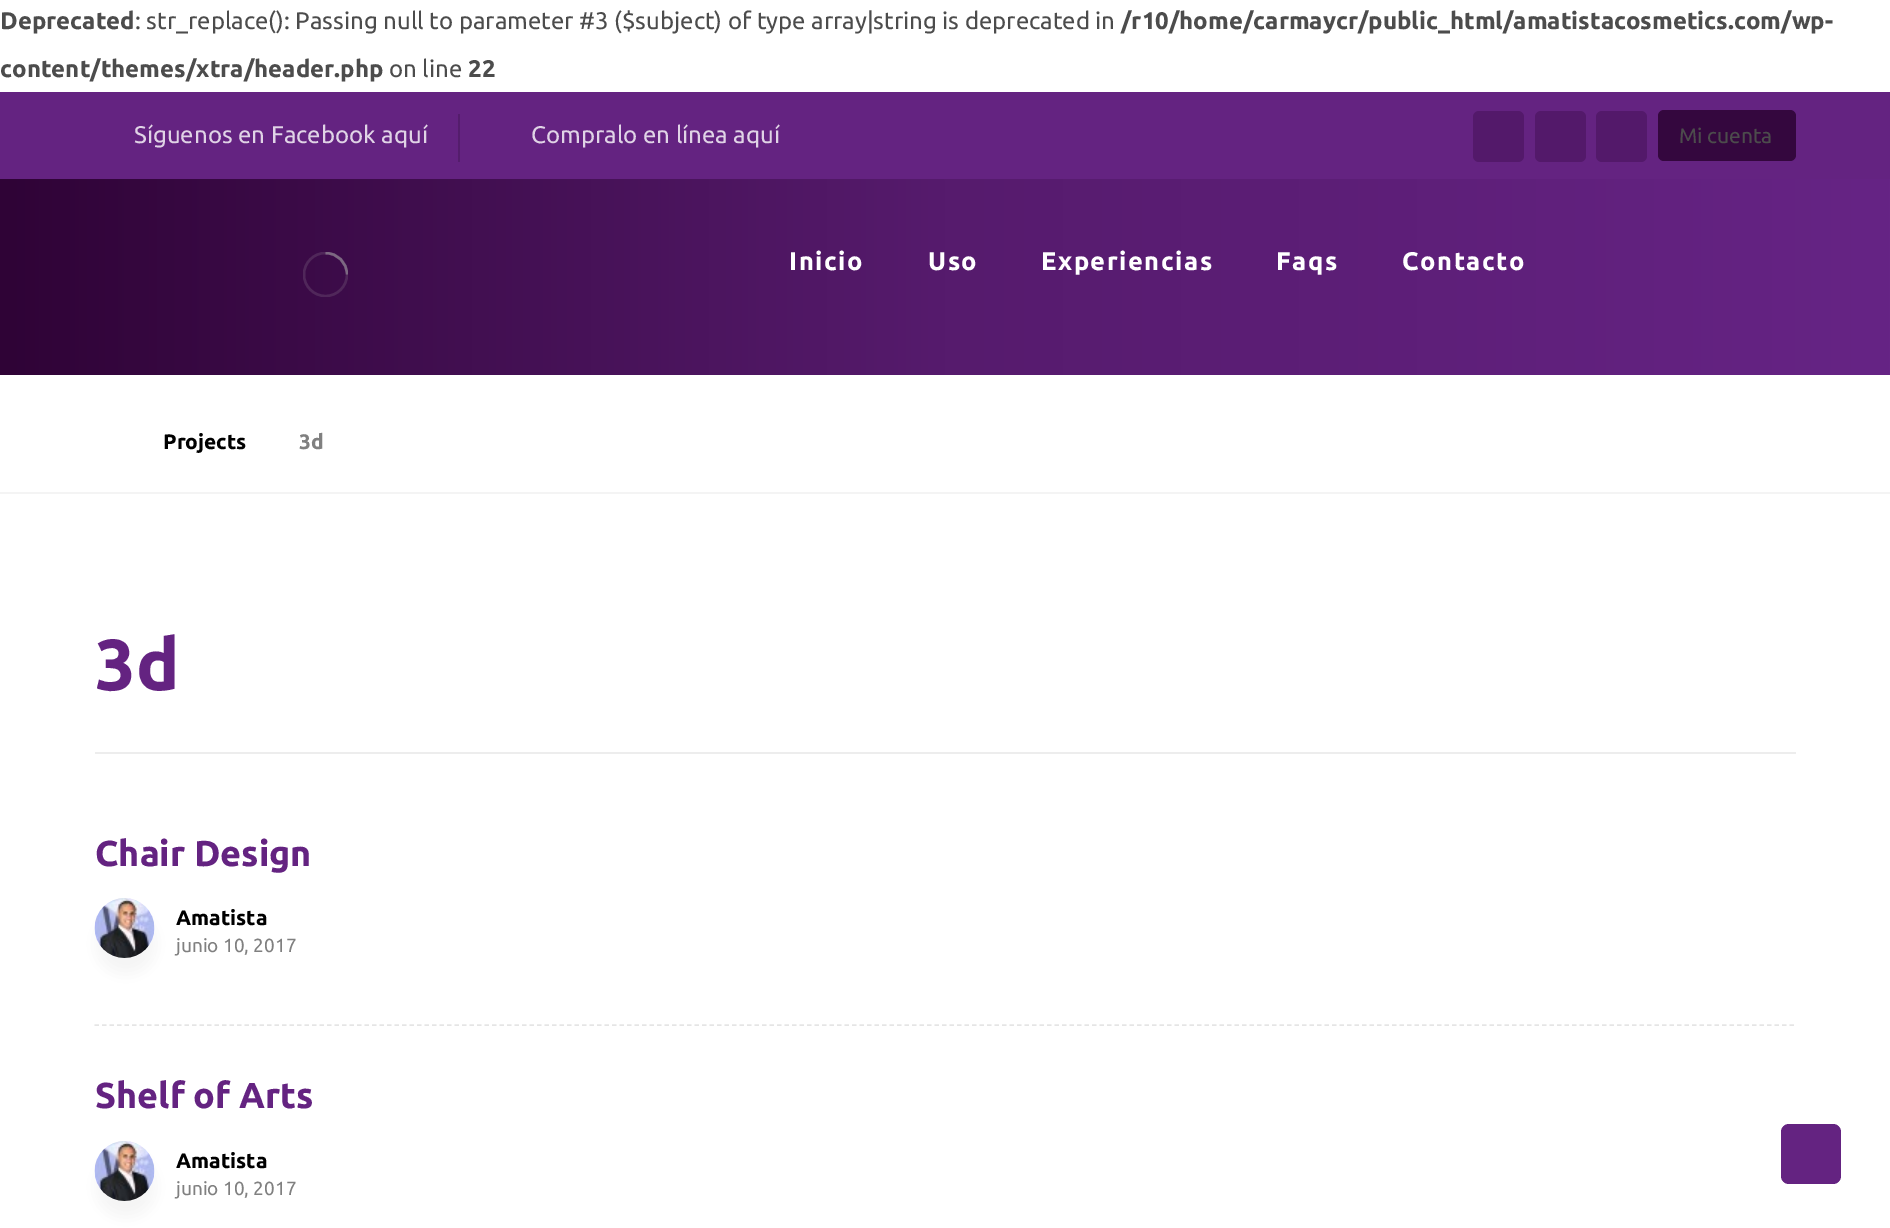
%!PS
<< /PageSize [1890 1228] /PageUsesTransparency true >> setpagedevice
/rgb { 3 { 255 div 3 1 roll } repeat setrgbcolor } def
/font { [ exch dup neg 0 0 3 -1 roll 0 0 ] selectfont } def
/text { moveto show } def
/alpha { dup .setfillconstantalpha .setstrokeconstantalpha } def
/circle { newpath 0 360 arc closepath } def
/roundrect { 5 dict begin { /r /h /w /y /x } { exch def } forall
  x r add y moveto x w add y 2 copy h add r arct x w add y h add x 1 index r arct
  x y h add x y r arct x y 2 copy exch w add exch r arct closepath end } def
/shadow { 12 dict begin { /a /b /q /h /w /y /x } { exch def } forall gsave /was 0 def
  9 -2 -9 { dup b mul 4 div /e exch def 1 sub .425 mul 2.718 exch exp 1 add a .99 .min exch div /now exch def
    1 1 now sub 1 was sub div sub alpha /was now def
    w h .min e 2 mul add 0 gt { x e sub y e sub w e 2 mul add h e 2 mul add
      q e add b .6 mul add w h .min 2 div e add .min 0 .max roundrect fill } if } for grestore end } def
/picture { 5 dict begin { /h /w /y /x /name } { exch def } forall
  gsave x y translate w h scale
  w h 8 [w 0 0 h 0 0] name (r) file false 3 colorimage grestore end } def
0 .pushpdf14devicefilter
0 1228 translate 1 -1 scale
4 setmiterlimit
255 255 255 rgb
0 0 1890 1228 rectfill
100 35 129 rgb
0 92 1890 87 rectfill
84 29 108 rgb
458 114 2 48 rectfill
83 25 106 rgb
1473 111 51 51 6 roundrect fill
1535 111 51 51 6 roundrect fill
1596 111 51 51 6 roundrect fill
52 7 62 rgb
1658 110 138 51 6 roundrect fill
gsave 0 179 moveto 1890 0 rlineto 0 196 rlineto -1890 0 rlineto closepath clip newpath
<< /ShadingType 2 /ColorSpace /DeviceRGB /Coords [0 277 1890 277] /Extend [true true] /Function << /FunctionType 3 /Domain [0 1] /Functions [<< /FunctionType 2 /Domain [0 1] /C0 [0.184 0.012 0.212] /C1 [0.337 0.106 0.427] /N 1 >> << /FunctionType 2 /Domain [0 1] /C0 [0.337 0.106 0.427] /C1 [0.4 0.141 0.522] /N 1 >>] /Bounds [0.5] /Encode [0 1 0 1] >> >> shfill grestore
gsave
303 252 45 45 rectclip
80 39 90 rgb
2.4 setlinewidth
325.5 274.5 21.5 circle stroke
125 105 130 rgb
347 274.5 moveto 0 -12 -9.5 -21.5 -21.5 -21.5 rcurveto stroke
grestore
244 244 244 rgb
0 492 1890 2 rectfill
237 237 237 rgb
95 752 1701 2 rectfill
229 229 229 rgb
1.5 setlinewidth
[4.5 3] 0 setdash
94.5 1025 moveto 1701 0 rlineto stroke
167 167 167 rgb
96 914 60 60 30 7.5 0.12 shadow
(img_01.rgb) 94 898 61 60 picture
96 1157 60 60 30 7.5 0.12 shadow
(img_02.rgb) 94 1141 61 60 picture
100 35 129 rgb
1781 1124 60 60 8 roundrect fill
/Ubuntu-Bold 24 font
76 76 76 rgb
(Deprecated) 0 29 text
/Ubuntu-Regular 24 font
(: str_replace\(\): Passing null to parameter #3 \($subject\) of type array|string is deprecated in) 135 29 text
/Ubuntu-Bold 24 font
(/r10/home/carmaycr/public_html/amatistacosmetics.com/wp-) 1121 29 text
(content/themes/xtra/header.php) 0 77 text
/Ubuntu-Regular 24 font
(on line) 389 77 text
/Ubuntu-Bold 24 font
(22) 468 77 text
/Ubuntu-Regular 24 font
224 211 230 rgb
(Síguenos en Facebook aquí) 134 143 text
(Compralo en línea aquí) 531 143 text
/Ubuntu-Regular 21 font
76 76 76 rgb
(Mi cuenta) 1679 143 text
/Ubuntu-Bold 25.5 font
255 255 255 rgb
789 270 moveto 1.5 0 (Inicio) ashow
928 270 moveto 1.5 0 (Uso) ashow
1041 270 moveto 1.5 0 (Experiencias) ashow
1276 270 moveto 1.5 0 (Faqs) ashow
1402 270 moveto 1.5 0 (Contacto) ashow
/Ubuntu-Bold 21 font
0 0 0 rgb
(Projects) 163 449 text
128 128 128 rgb
(3d) 299 449 text
/Ubuntu-Bold 72 font
100 35 129 rgb
(3d) 95 690 text
/Ubuntu-Bold 36 font
(Chair Design) 95 866 text
/Ubuntu-Bold 21 font
0 0 0 rgb
(Amatista) 176 925 text
/Ubuntu-Regular 19 font
128 128 128 rgb
(junio 10, 2017) 176 952 text
/Ubuntu-Bold 36 font
100 35 129 rgb
(Shelf of Arts) 95 1108 text
/Ubuntu-Bold 21 font
0 0 0 rgb
(Amatista) 176 1168 text
/Ubuntu-Regular 19 font
128 128 128 rgb
(junio 10, 2017) 176 1195 text
.poppdf14devicefilter showpage
